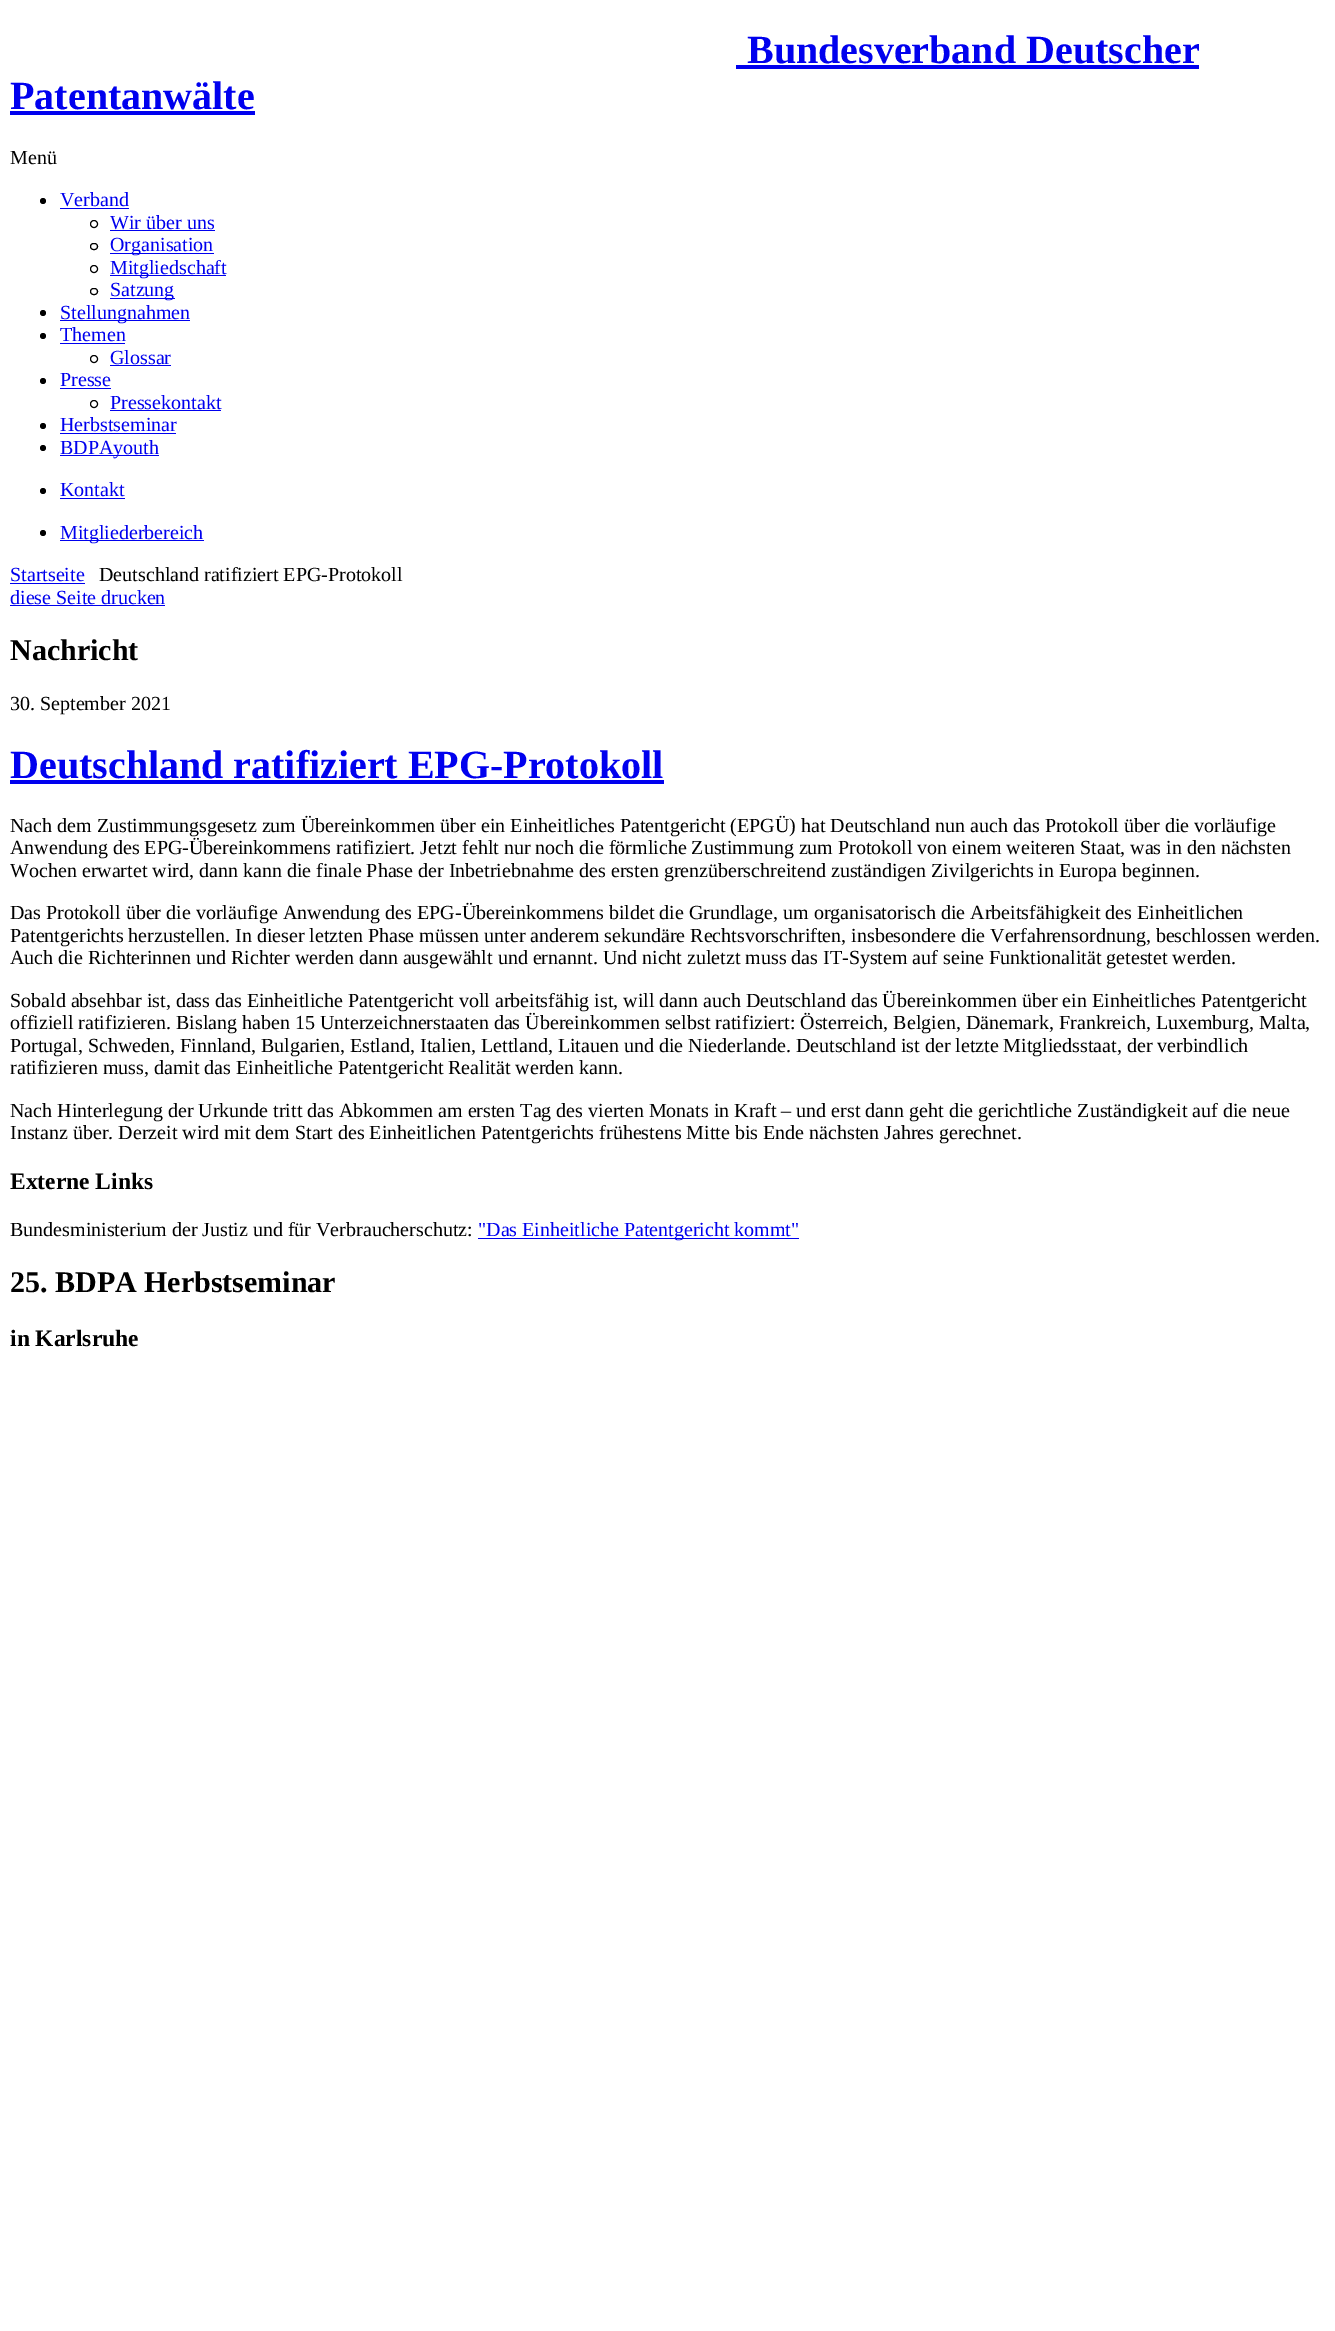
%!PS
<< /PageSize [1335 2331] >> setpagedevice
/rgb { 3 { 255 div 3 1 roll } repeat setrgbcolor } def
/font { [ exch dup neg 0 0 3 -1 roll 0 0 ] selectfont } def
/text { moveto show } def
/circle { newpath 0 360 arc closepath } def
/roundrect { 5 dict begin { /r /h /w /y /x } { exch def } forall
  x r add y moveto x w add y 2 copy h add r arct x w add y h add x 1 index r arct
  x y h add x y r arct x y 2 copy exch w add exch r arct closepath end } def
0 2331 translate 1 -1 scale
4 setmiterlimit
255 255 255 rgb
0 0 1335 2331 rectfill
0 0 238 rgb
736 65 463 4 rectfill
10 111 245 4 rectfill
0 0 0 rgb
43 201 3 circle fill
0 0 238 rgb
60 208 69 1 rectfill
0 0 0 rgb
94 224 3.5 circle stroke
0 0 238 rgb
110 230 105 1 rectfill
0 0 0 rgb
90.5 243.5 7 6 3 roundrect stroke
0 0 238 rgb
110 253 104 1 rectfill
0 0 0 rgb
94 269 3.5 circle stroke
0 0 238 rgb
110 275 116 1 rectfill
0 0 0 rgb
90.5 288.5 7 6 3 roundrect stroke
0 0 238 rgb
110 298 65 1 rectfill
0 0 0 rgb
43 313 3 circle fill
0 0 238 rgb
60 320 130 1 rectfill
0 0 0 rgb
43 336 3 circle fill
0 0 238 rgb
60 343 65 1 rectfill
0 0 0 rgb
94 359 3.5 circle stroke
0 0 238 rgb
110 365 61 1 rectfill
0 0 0 rgb
43 381 3 circle fill
0 0 238 rgb
60 388 51 1 rectfill
0 0 0 rgb
94 404 3.5 circle stroke
0 0 238 rgb
110 410 111 1 rectfill
0 0 0 rgb
43 426 3 circle fill
0 0 238 rgb
60 433 116 1 rectfill
0 0 0 rgb
43 448 3 circle fill
0 0 238 rgb
60 455 99 1 rectfill
0 0 0 rgb
43 491 3 circle fill
0 0 238 rgb
60 498 65 1 rectfill
0 0 0 rgb
43 533 3 circle fill
0 0 238 rgb
60 540 144 1 rectfill
10 583 75 1 rectfill
10 605 155 1 rectfill
10 780 654 4 rectfill
478 1238 321 1 rectfill
/LiberationSerif-Bold 40 font
(Bundesverband Deutscher) 747 63 text
(Patentanwälte) 10 109 text
/LiberationSerif-Regular 20 font
0 0 0 rgb
(Menü) 10 164 text
0 0 238 rgb
(Verband) 60 206 text
(Wir über uns) 110 229 text
(Organisation) 110 251 text
(Mitgliedschaft) 110 274 text
(Satzung) 110 296 text
(Stellungnahmen) 60 319 text
(Themen) 60 341 text
(Glossar) 110 364 text
(Presse) 60 386 text
(Pressekontakt) 110 409 text
(Herbstseminar) 60 431 text
(BDPAyouth) 60 454 text
(Kontakt) 60 496 text
(Mitgliederbereich) 60 539 text
(Startseite) 10 581 text
0 0 0 rgb
(Deutschland ratifiziert EPG-Protokoll) 99 581 text
0 0 238 rgb
(diese Seite drucken) 10 604 text
/LiberationSerif-Bold 30 font
0 0 0 rgb
(Nachricht) 10 660 text
/LiberationSerif-Regular 20 font
(30. September 2021) 10 710 text
/LiberationSerif-Bold 40 font
0 0 238 rgb
(Deutschland ratifiziert EPG-Protokoll) 10 778 text
/LiberationSerif-Regular 20 font
0 0 0 rgb
(Nach dem Zustimmungsgesetz zum Übereinkommen über ein Einheitliches Patentgericht \(EPGÜ\) hat Deutschland nun auch das Protokoll über die vorläufige) 10 832 text
(Anwendung des EPG-Übereinkommens ratifiziert. Jetzt fehlt nur noch die förmliche Zustimmung zum Protokoll von einem weiteren Staat, was in den nächsten) 10 854 text
(Wochen erwartet wird, dann kann die finale Phase der Inbetriebnahme des ersten grenzüberschreitend zuständigen Zivilgerichts in Europa beginnen.) 10 877 text
(Das Protokoll über die vorläufige Anwendung des EPG-Übereinkommens bildet die Grundlage, um organisatorisch die Arbeitsfähigkeit des Einheitlichen) 10 919 text
(Patentgerichts herzustellen. In dieser letzten Phase müssen unter anderem sekundäre Rechtsvorschriften, insbesondere die Verfahrensordnung, beschlossen werden.) 10 942 text
(Auch die Richterinnen und Richter werden dann ausgewählt und ernannt. Und nicht zuletzt muss das IT-System auf seine Funktionalität getestet werden.) 10 964 text
(Sobald absehbar ist, dass das Einheitliche Patentgericht voll arbeitsfähig ist, will dann auch Deutschland das Übereinkommen über ein Einheitliches Patentgericht) 10 1007 text
(offiziell ratifizieren. Bislang haben 15 Unterzeichnerstaaten das Übereinkommen selbst ratifiziert: Österreich, Belgien, Dänemark, Frankreich, Luxemburg, Malta,) 10 1029 text
(Portugal, Schweden, Finnland, Bulgarien, Estland, Italien, Lettland, Litauen und die Niederlande. Deutschland ist der letzte Mitgliedsstaat, der verbindlich) 10 1052 text
(ratifizieren muss, damit das Einheitliche Patentgericht Realität werden kann.) 10 1074 text
(Nach Hinterlegung der Urkunde tritt das Abkommen am ersten Tag des vierten Monats in Kraft – und erst dann geht die gerichtliche Zuständigkeit auf die neue) 10 1117 text
(Instanz über. Derzeit wird mit dem Start des Einheitlichen Patentgerichts frühestens Mitte bis Ende nächsten Jahres gerechnet.) 10 1139 text
/LiberationSerif-Bold 23.5 font
(Externe Links) 10 1189 text
/LiberationSerif-Regular 20 font
(Bundesministerium der Justiz und für Verbraucherschutz:) 10 1236 text
0 0 238 rgb
("Das Einheitliche Patentgericht kommt") 478 1236 text
/LiberationSerif-Bold 30 font
0 0 0 rgb
(25. BDPA Herbstseminar) 10 1292 text
/LiberationSerif-Bold 23.5 font
(in Karlsruhe) 10 1346 text
showpage
